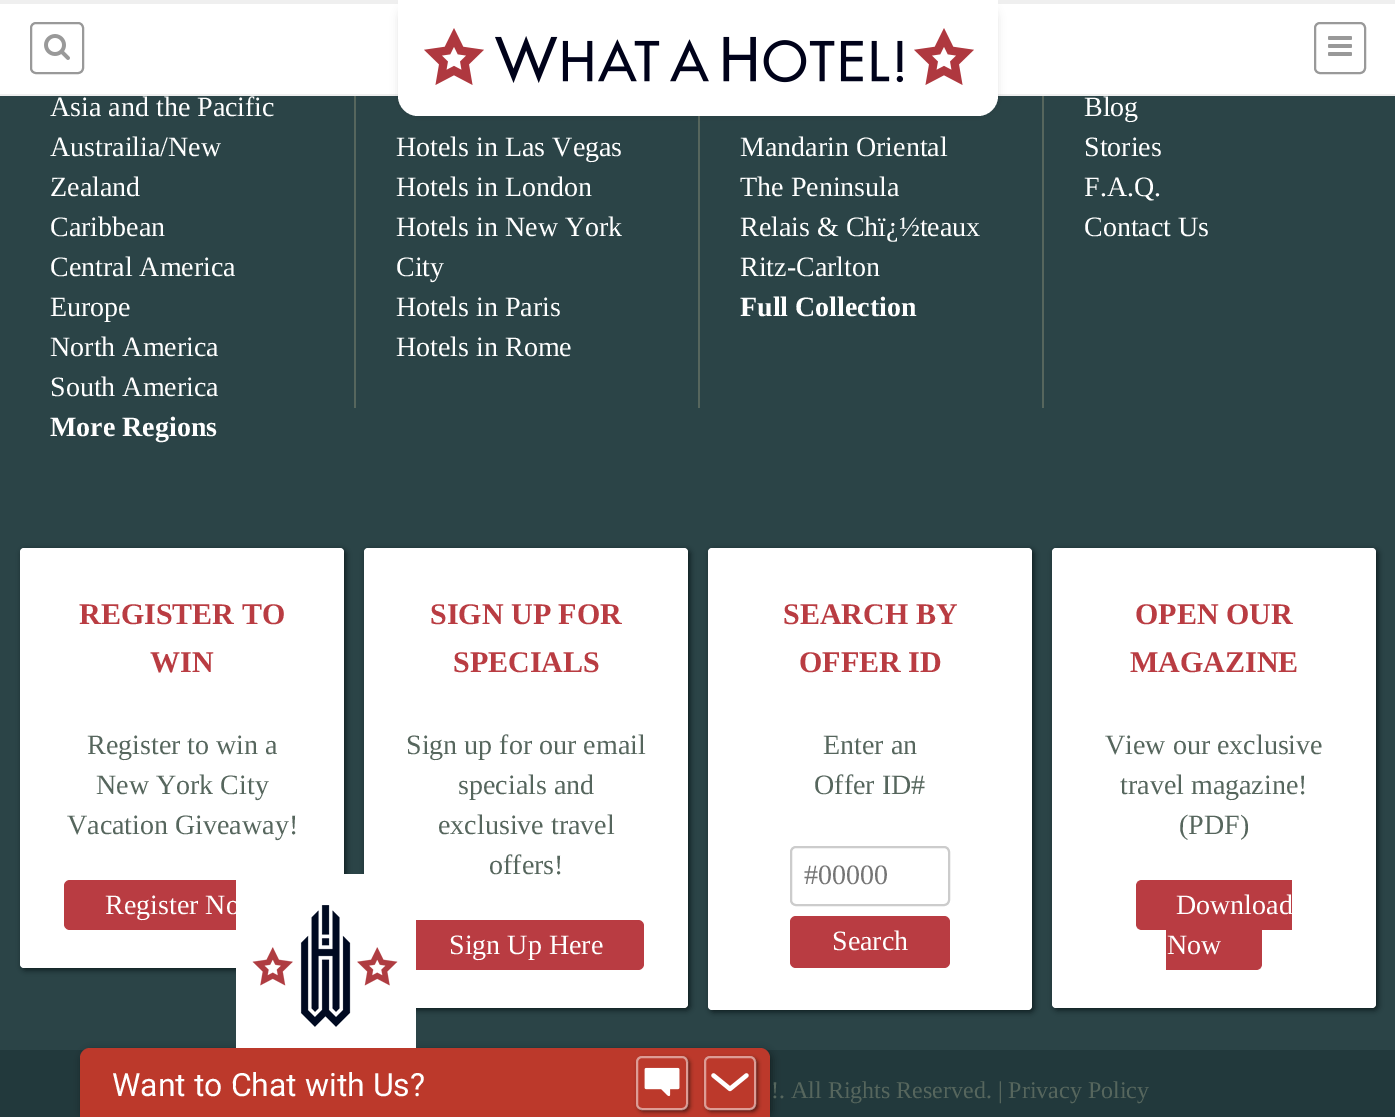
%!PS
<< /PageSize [1395 1117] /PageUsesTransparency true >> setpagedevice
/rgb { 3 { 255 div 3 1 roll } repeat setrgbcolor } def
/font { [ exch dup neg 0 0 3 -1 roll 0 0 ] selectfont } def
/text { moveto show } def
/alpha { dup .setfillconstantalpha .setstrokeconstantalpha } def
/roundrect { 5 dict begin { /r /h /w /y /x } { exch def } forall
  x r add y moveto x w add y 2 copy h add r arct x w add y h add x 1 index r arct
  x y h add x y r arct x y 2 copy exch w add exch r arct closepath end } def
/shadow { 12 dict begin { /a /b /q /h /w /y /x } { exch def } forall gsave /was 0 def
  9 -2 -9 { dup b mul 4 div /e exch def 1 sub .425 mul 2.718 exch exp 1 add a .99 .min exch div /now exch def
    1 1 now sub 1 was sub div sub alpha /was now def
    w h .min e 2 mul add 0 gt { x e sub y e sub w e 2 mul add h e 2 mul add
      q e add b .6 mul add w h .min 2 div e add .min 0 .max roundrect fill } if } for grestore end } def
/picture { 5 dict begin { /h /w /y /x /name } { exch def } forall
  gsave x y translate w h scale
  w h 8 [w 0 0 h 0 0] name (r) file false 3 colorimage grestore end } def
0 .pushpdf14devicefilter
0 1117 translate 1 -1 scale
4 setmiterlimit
43 68 71 rgb
0 0 1395 1117 rectfill
255 255 255 rgb
0 4 1395 90 rectfill
239 239 239 rgb
0 0 1395 4 rectfill
0 94 1395 2 rectfill
153 153 153 rgb
2 setlinewidth
31 23 52 50 5 roundrect stroke
(img_01.rgb) 44 34 26 26 picture
86 102 93 rgb
698 116 2 292 rectfill
0 0 0 rgb
398 0 600 116 20 4 0.1 shadow
255 255 255 rgb
398 0 moveto 600 0 rlineto 0 96 rlineto 0 11 -9 20 -20 20 rcurveto -560 0 rlineto -11 0 -20 -9 -20 -20 rcurveto closepath fill
(img_02.rgb) 424 28 550 57 picture
153 153 153 rgb
1315 23 50 50 5 roundrect stroke
(img_03.rgb) 1328 36 24 20 picture
86 102 93 rgb
354 96 2 312 rectfill
1042 96 2 312 rectfill
12 27 29 rgb
22 550 324 420 4 3 1 shadow
255 255 255 rgb
20 548 324 420 4 roundrect fill
185 60 66 rgb
64 880 236 50 6 roundrect fill
12 27 29 rgb
366 550 324 460 4 3 1 shadow
255 255 255 rgb
364 548 324 460 4 roundrect fill
185 60 66 rgb
410 920 234 50 6 roundrect fill
12 27 29 rgb
710 550 324 462 4 3 1 shadow
255 255 255 rgb
708 548 324 462 4 roundrect fill
204 204 204 rgb
791 847 158 58 5 roundrect stroke
185 60 66 rgb
790 916 160 52 6 roundrect fill
12 27 29 rgb
1054 550 324 460 4 3 1 shadow
255 255 255 rgb
1052 548 324 460 4 roundrect fill
185 60 66 rgb
1142 880 moveto 150 0 rlineto 0 50 rlineto -150 0 rlineto -3.5 0 -6 -2.5 -6 -6 rcurveto 0 -38 rlineto 0 -3.5 2.5 -6 6 -6 rcurveto closepath fill
1166 920 moveto 90 0 rlineto 3.5 0 6 2.5 6 6 rcurveto 0 38 rlineto 0 3.5 -2.5 6 -6 6 rcurveto -90 0 rlineto closepath fill
34 57 60 rgb
0 1050 1395 67 rectfill
0 0 0 rgb
82 1050 690 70 10 4 0.4 shadow
188 57 43 rgb
90 1048 moveto 670 0 rlineto 5.5 0 10 4.5 10 10 rcurveto 0 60 rlineto -690 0 rlineto 0 -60 rlineto 0 -5.5 4.5 -10 10 -10 rcurveto closepath fill
gsave
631 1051 moveto 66 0 rlineto 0 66 rlineto -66 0 rlineto closepath 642 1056 moveto 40 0 rlineto 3.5 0 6 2.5 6 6 rcurveto 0 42 rlineto 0 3.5 -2.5 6 -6 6 rcurveto -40 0 rlineto -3.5 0 -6 -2.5 -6 -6 rcurveto 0 -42 rlineto 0 -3.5 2.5 -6 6 -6 rcurveto closepath eoclip newpath
0 0 0 rgb
638 1058 52 54 6 2 0.5 shadow
grestore
0.5 alpha
255 255 255 rgb
637 1057 50 52 5 roundrect stroke
1 alpha
(img_05.rgb) 644 1067 36 30 picture
gsave
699 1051 moveto 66 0 rlineto 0 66 rlineto -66 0 rlineto closepath 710 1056 moveto 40 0 rlineto 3.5 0 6 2.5 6 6 rcurveto 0 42 rlineto 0 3.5 -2.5 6 -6 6 rcurveto -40 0 rlineto -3.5 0 -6 -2.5 -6 -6 rcurveto 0 -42 rlineto 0 -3.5 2.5 -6 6 -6 rcurveto closepath eoclip newpath
0 0 0 rgb
706 1058 52 54 6 2 0.5 shadow
grestore
0.5 alpha
705 1057 50 52 5 roundrect stroke
1 alpha
(img_06.rgb) 711 1073 38 19 picture
/LiberationSerif-Regular 28 font
(Asia and the Pacific) 50 116 text
(Austrailia/New) 50 156 text
(Zealand) 50 196 text
(Caribbean) 50 236 text
(Central America) 50 276 text
(Europe) 50 316 text
(North America) 50 356 text
(South America) 50 396 text
/LiberationSerif-Bold 28 font
(More Regions) 50 436 text
/LiberationSerif-Regular 28 font
(Hotels in Las Vegas) 396 156 text
(Hotels in London) 396 196 text
(Hotels in New York) 396 236 text
(City) 396 276 text
(Hotels in Paris) 396 316 text
(Hotels in Rome) 396 356 text
(Mandarin Oriental) 740 156 text
(The Peninsula) 740 196 text
(Relais & Chï¿½teaux) 740 236 text
(Ritz-Carlton) 740 276 text
/LiberationSerif-Bold 28 font
(Full Collection) 740 316 text
/LiberationSerif-Regular 28 font
(Blog) 1084 116 text
(Stories) 1084 156 text
(F.A.Q.) 1084 196 text
(Contact Us) 1084 236 text
/LiberationSerif-Bold 30 font
185 60 66 rgb
(REGISTER TO) 79 624 text
(WIN) 150 672 text
/LiberationSerif-Regular 28 font
86 102 93 rgb
(Register to win a) 87 754 text
(New York City) 96 794 text
(Vacation Giveaway!) 67 834 text
255 255 255 rgb
(Register No) 105 914 text
/LiberationSerif-Bold 30 font
185 60 66 rgb
(SIGN UP FOR) 430 624 text
(SPECIALS) 453 672 text
/LiberationSerif-Regular 28 font
86 102 93 rgb
(Sign up for our email) 406 754 text
(specials and) 458 794 text
(exclusive travel) 438 834 text
(offers!) 489 874 text
255 255 255 rgb
(Sign Up Here) 449 954 text
/LiberationSerif-Bold 30 font
185 60 66 rgb
(SEARCH BY) 783 624 text
(OFFER ID) 799 672 text
/LiberationSerif-Regular 28 font
86 102 93 rgb
(Enter an) 823 754 text
(Offer ID#) 814 794 text
117 117 117 rgb
(#00000) 804 884 text
255 255 255 rgb
(Search) 832 950 text
/LiberationSerif-Bold 30 font
185 60 66 rgb
(OPEN OUR) 1135 624 text
(MAGAZINE) 1130 672 text
/LiberationSerif-Regular 28 font
86 102 93 rgb
(View our exclusive) 1105 754 text
(travel magazine!) 1120 794 text
(\(PDF\)) 1179 834 text
255 255 255 rgb
(Download) 1176 914 text
(Now) 1167 954 text
/LiberationSerif-Regular 24 font
86 102 93 rgb
(!. All Rights Reserved. | Privacy Policy) 771 1098 text
(img_04.rgb) 236 874 180 174 picture
/Roboto-Regular 32 font
255 255 255 rgb
(Want to Chat with Us?) 112 1096 text
.poppdf14devicefilter showpage
